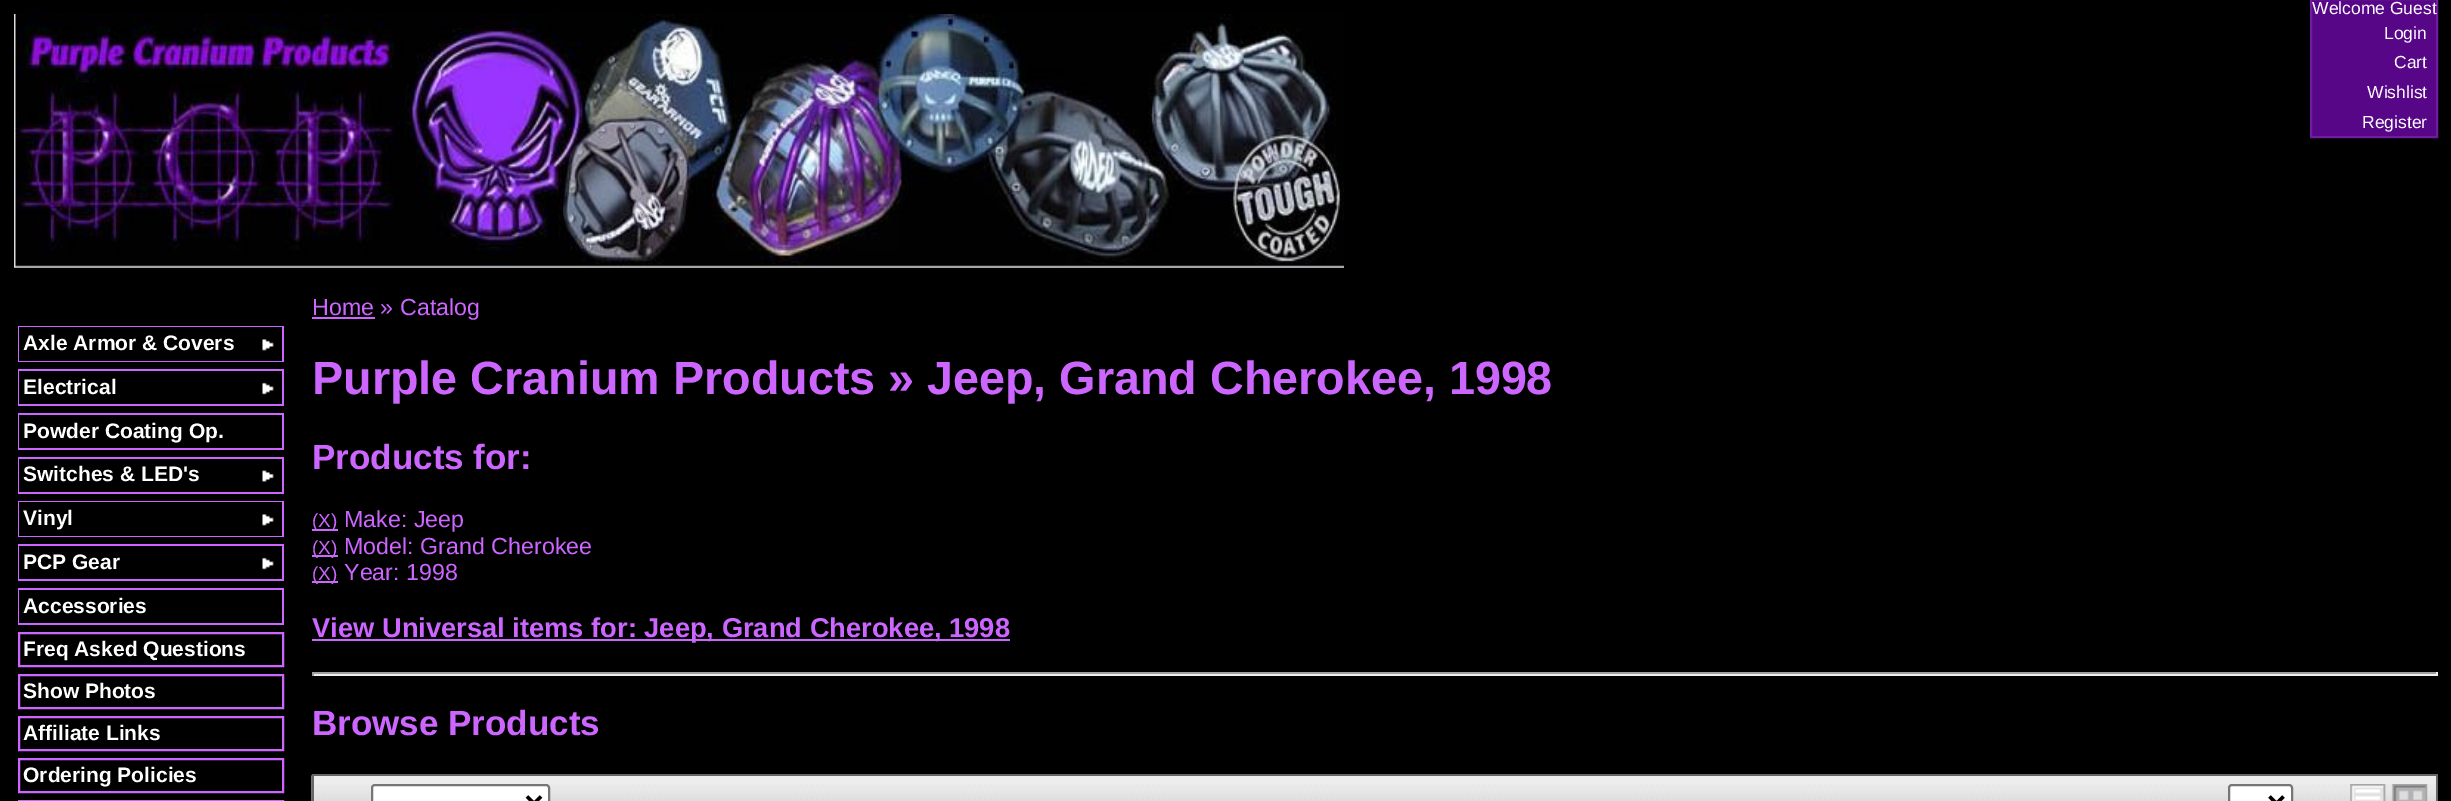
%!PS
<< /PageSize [2451 801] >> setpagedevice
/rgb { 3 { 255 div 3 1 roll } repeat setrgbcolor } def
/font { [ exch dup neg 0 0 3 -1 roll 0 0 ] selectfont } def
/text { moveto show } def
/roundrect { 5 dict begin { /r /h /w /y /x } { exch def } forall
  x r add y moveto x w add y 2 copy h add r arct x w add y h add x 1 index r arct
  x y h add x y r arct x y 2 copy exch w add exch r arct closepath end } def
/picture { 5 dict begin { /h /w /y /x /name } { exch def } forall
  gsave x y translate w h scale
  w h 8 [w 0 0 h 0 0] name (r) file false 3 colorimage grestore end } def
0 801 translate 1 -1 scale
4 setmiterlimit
0 0 0 rgb
0 0 2451 801 rectfill
(img_01.rgb) 14 14 1330 254 picture
87 6 135 rgb
2311 -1 moveto 126 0 rlineto 0 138 rlineto -126 0 rlineto closepath gsave fill grestore
110 29 158 rgb
2 setlinewidth
stroke
204 102 255 rgb
19 633 264 33 rectstroke
19 675 264 33 rectstroke
19 717 264 33 rectstroke
19 759 264 33 rectstroke
19 801 264 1 rectstroke
312 317 63 2 rectfill
312 529 26 2 rectfill
312 555 26 2 rectfill
312 581 26 2 rectfill
312 639 698 2 rectfill
159 159 159 rgb
312 672 2126 2 rectfill
238 238 238 rgb
2436 672 2 4 rectfill
312 674 2126 2 rectfill
159 159 159 rgb
312 672 2 4 rectfill
(img_02.rgb) 311 774 2125 27 picture
102 102 102 rgb
312 774 2126 2 rectfill
2436 774 2 27 rectfill
312 774 2 27 rectfill
255 255 255 rgb
372 785 177 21 3 roundrect gsave fill grestore
118 118 118 rgb
stroke
0 0 0 rgb
3.5 setlinewidth
527 796.5 moveto 7 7 rlineto 7 -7 rlineto stroke
255 255 255 rgb
2229 785 63 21 3 roundrect gsave fill grestore
118 118 118 rgb
2 setlinewidth
stroke
0 0 0 rgb
3.5 setlinewidth
2269.5 796.5 moveto 7 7 rlineto 7 -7 rlineto stroke
(img_03.rgb) 2350 784 78 17 picture
204 102 255 rgb
18 326 266 36 rectfill
0 0 0 rgb
19 327 263 34 rectfill
(img_04.rgb) 262 339 12 12 picture
204 102 255 rgb
18 369 266 37 rectfill
0 0 0 rgb
19 371 263 33 rectfill
(img_05.rgb) 262 382 12 13 picture
204 102 255 rgb
18 413 266 37 rectfill
0 0 0 rgb
19 415 263 33 rectfill
204 102 255 rgb
18 457 266 37 rectfill
0 0 0 rgb
19 459 263 33 rectfill
(img_06.rgb) 262 470 12 12 picture
204 102 255 rgb
18 501 266 36 rectfill
0 0 0 rgb
19 502 263 34 rectfill
(img_04.rgb) 262 514 12 12 picture
204 102 255 rgb
18 544 266 37 rectfill
0 0 0 rgb
19 546 263 33 rectfill
(img_05.rgb) 262 557 12 13 picture
204 102 255 rgb
18 588 266 37 rectfill
0 0 0 rgb
19 590 263 33 rectfill
/LiberationSans-Regular 17.5 font
255 255 255 rgb
(Welcome Guest) 2312 14 text
(Login) 2384 39 text
(Cart) 2394 68 text
(Wishlist) 2367 98 text
(Register) 2362 128 text
/LiberationSans-Bold 21 font
(Freq Asked Questions) 23 656 text
(Show Photos) 23 698 text
(Affiliate Links) 23 740 text
(Ordering Policies) 23 782 text
/LiberationSans-Regular 23.25 font
204 102 255 rgb
(Home » Catalog) 312 315 text
/LiberationSans-Bold 46.7 font
(Purple Cranium Products » Jeep, Grand Cherokee, 1998) 312 394 text
/LiberationSans-Bold 35 font
(Products for:) 312 469 text
/LiberationSans-Regular 19 font
(\(X\)) 312 527 text
/LiberationSans-Regular 23.25 font
(Make: Jeep) 344 527 text
/LiberationSans-Regular 19 font
(\(X\)) 312 554 text
/LiberationSans-Regular 23.25 font
(Model: Grand Cherokee) 344 554 text
/LiberationSans-Regular 19 font
(\(X\)) 312 580 text
/LiberationSans-Regular 23.25 font
(Year: 1998) 344 580 text
/LiberationSans-Bold 27.3 font
(View Universal items for: Jeep, Grand Cherokee, 1998) 312 637 text
/LiberationSans-Bold 35 font
(Browse Products) 312 735 text
/LiberationSans-Bold 21 font
255 255 255 rgb
(Axle Armor & Covers) 23 350 text
(Electrical) 23 394 text
(Powder Coating Op.) 23 438 text
(Switches & LED's) 23 481 text
(Vinyl) 23 525 text
(PCP Gear) 23 569 text
(Accessories) 23 613 text
showpage
